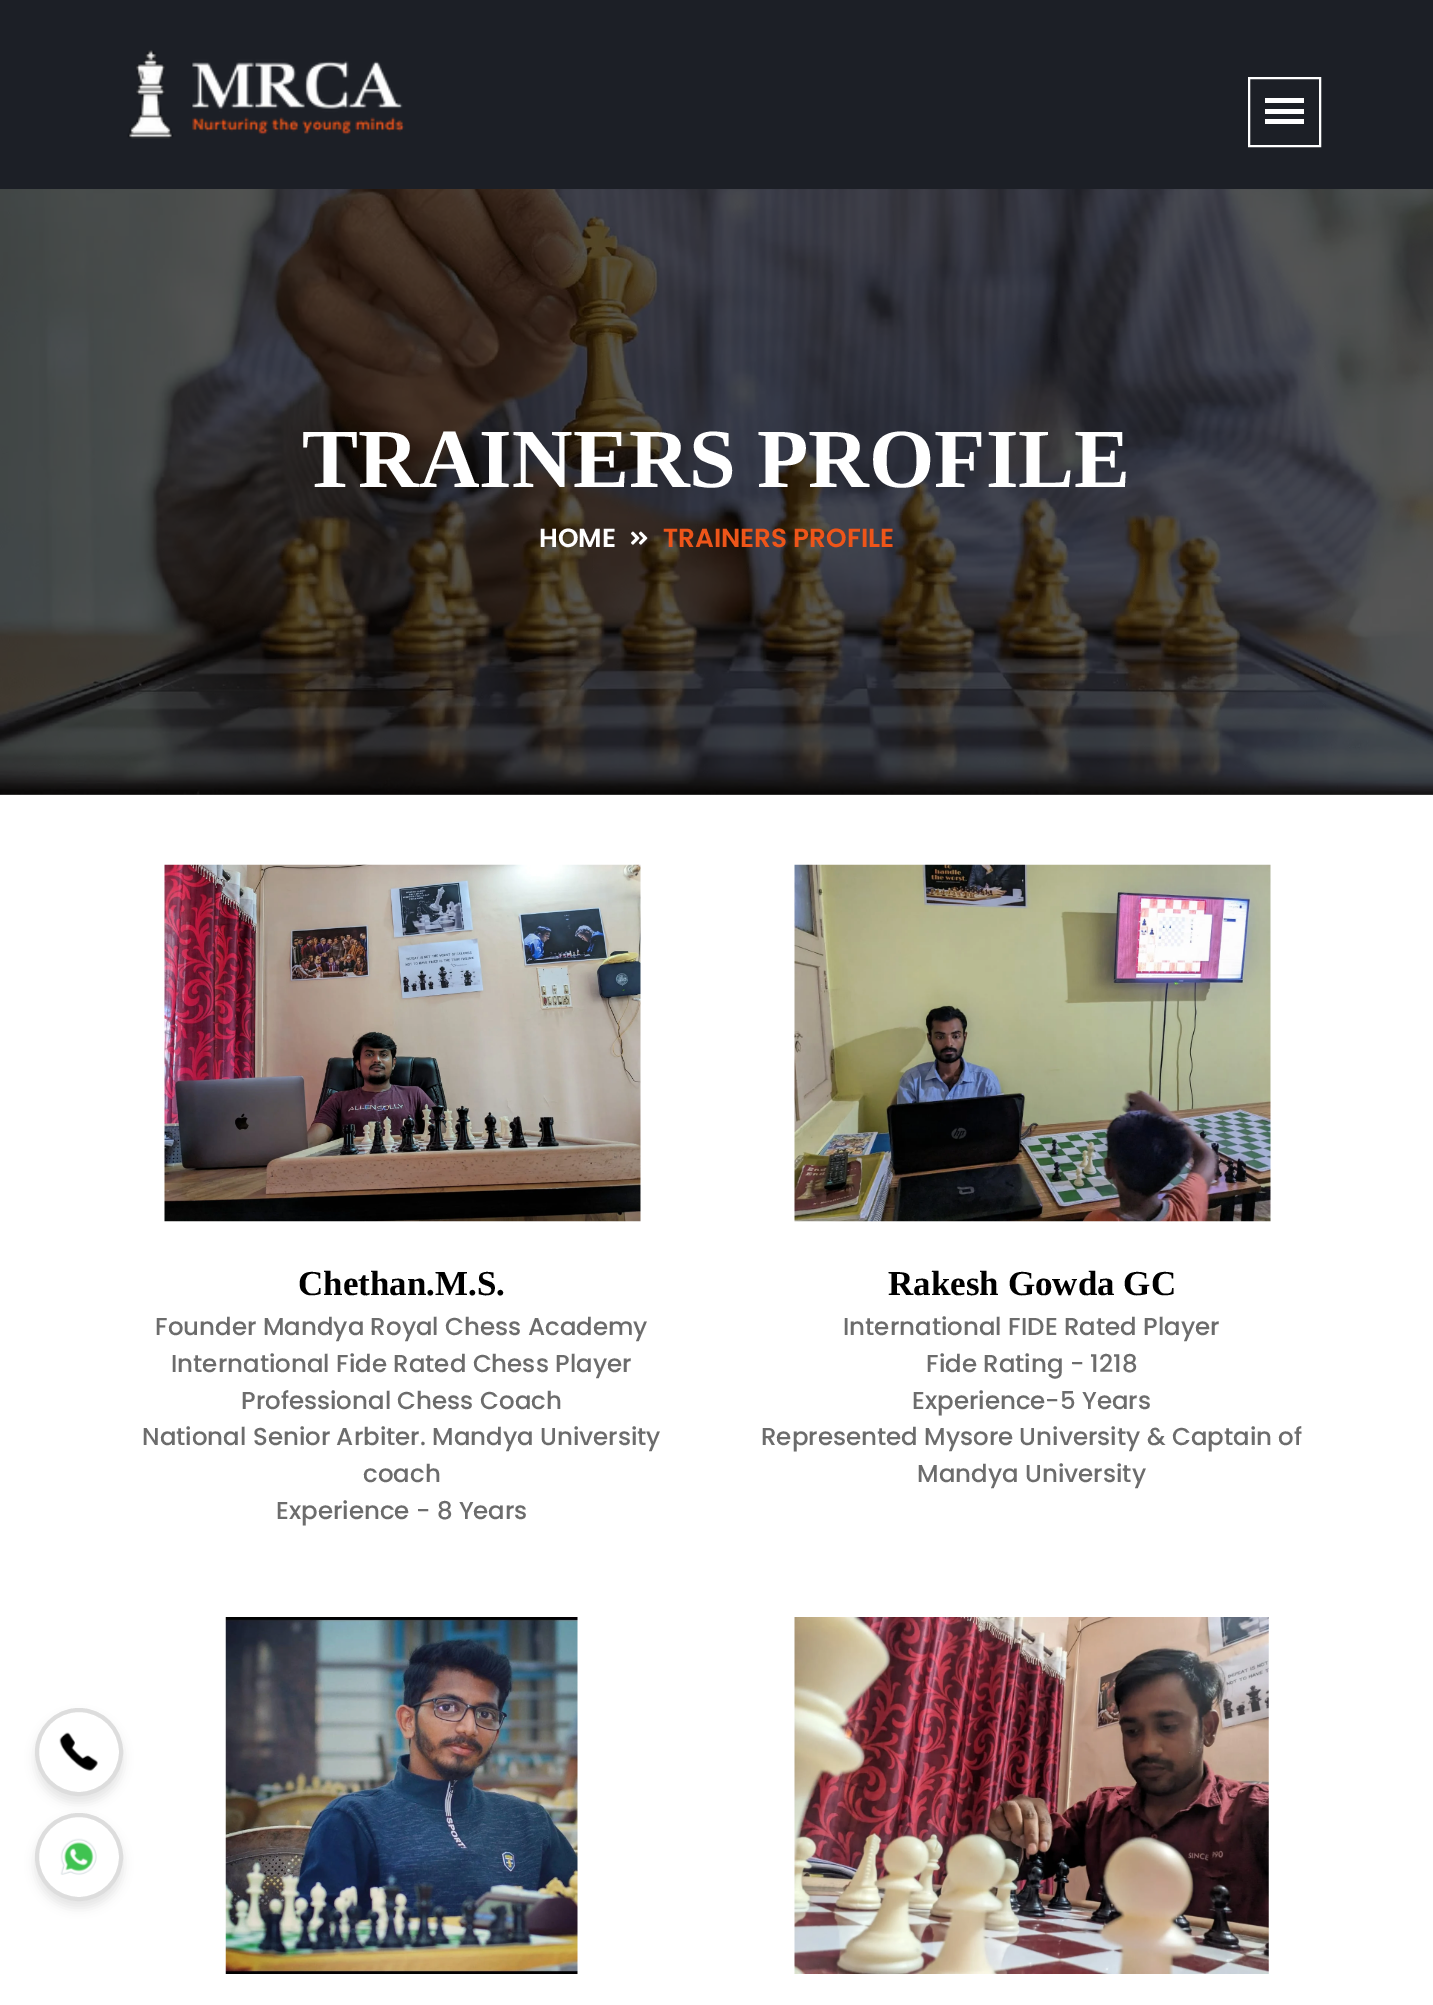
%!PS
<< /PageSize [1433 2005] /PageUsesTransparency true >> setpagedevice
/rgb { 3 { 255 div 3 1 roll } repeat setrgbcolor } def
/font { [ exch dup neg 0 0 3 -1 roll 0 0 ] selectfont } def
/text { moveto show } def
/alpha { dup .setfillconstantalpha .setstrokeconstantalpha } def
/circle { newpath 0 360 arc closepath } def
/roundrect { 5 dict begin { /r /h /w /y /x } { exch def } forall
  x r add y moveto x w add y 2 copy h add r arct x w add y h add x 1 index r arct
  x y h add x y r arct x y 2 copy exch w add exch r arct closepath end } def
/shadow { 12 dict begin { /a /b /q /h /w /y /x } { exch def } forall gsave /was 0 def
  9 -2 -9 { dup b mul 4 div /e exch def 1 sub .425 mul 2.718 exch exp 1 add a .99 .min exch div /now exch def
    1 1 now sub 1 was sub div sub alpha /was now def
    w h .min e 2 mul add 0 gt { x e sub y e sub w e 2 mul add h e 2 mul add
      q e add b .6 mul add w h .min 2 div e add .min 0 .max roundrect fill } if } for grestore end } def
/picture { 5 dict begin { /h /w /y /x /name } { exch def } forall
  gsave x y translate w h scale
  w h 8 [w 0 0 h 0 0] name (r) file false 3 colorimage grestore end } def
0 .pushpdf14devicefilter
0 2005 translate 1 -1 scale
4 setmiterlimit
255 255 255 rgb
0 0 1433 2005 rectfill
85 85 85 rgb
0 794 1433 1 rectfill
28 31 38 rgb
0 0 1433 189 rectfill
(img_01.rgb) 127 50 278 89 picture
255 255 255 rgb
2 setlinewidth
1249 78 71 68 rectstroke
1265 98 39 5 rectfill
1265 109 39 5 rectfill
1265 119 39 5 rectfill
(img_02.rgb) 0 189 1433 606 picture
(img_03.rgb) 631 531 17 14 picture
(img_04.rgb) 164 864 477 358 picture
(img_05.rgb) 794 864 477 358 picture
(img_06.rgb) 225 1617 353 357 picture
(img_07.rgb) 794 1617 475 357 picture
0 0 0 rgb
35 1715 88 88 44 5 0.1 shadow
255 255 255 rgb
79 1752 42 circle gsave fill grestore
221 221 221 rgb
4 setlinewidth
stroke
(img_08.rgb) 59 1732 39 39 picture
0 0 0 rgb
35 1820 88 88 44 5 0.1 shadow
255 255 255 rgb
79 1857 42 circle gsave fill grestore
221 221 221 rgb
stroke
(img_09.rgb) 60 1838 37 37 picture
/LiberationSerif-Bold 84 font
255 255 255 rgb
(TRAINERS PROFILE) 302 487 text
/Poppins-SemiBold 26.25 font
(HOME) 539 547 text
238 85 25 rgb
(TRAINERS PROFILE) 663 547 text
/LiberationSerif-Bold 35 font
0 0 0 rgb
(Chethan.M.S.) 298 1295 text
/Poppins-Medium 24.5 font
108 108 108 rgb
(Founder Mandya Royal Chess Academy) 155 1335 text
(International Fide Rated Chess Player) 171 1372 text
(Professional Chess Coach) 241 1409 text
(National Senior Arbiter. Mandya University) 142 1445 text
(coach) 363 1482 text
(Experience - 8 Years) 276 1519 text
/LiberationSerif-Bold 35 font
0 0 0 rgb
(Rakesh Gowda GC) 888 1295 text
/Poppins-Medium 24.5 font
108 108 108 rgb
(International FIDE Rated Player) 843 1335 text
(Fide Rating - 1218) 926 1372 text
(Experience-5 Years) 912 1409 text
(Represented Mysore University & Captain of) 761 1445 text
(Mandya University) 917 1482 text
.poppdf14devicefilter showpage
